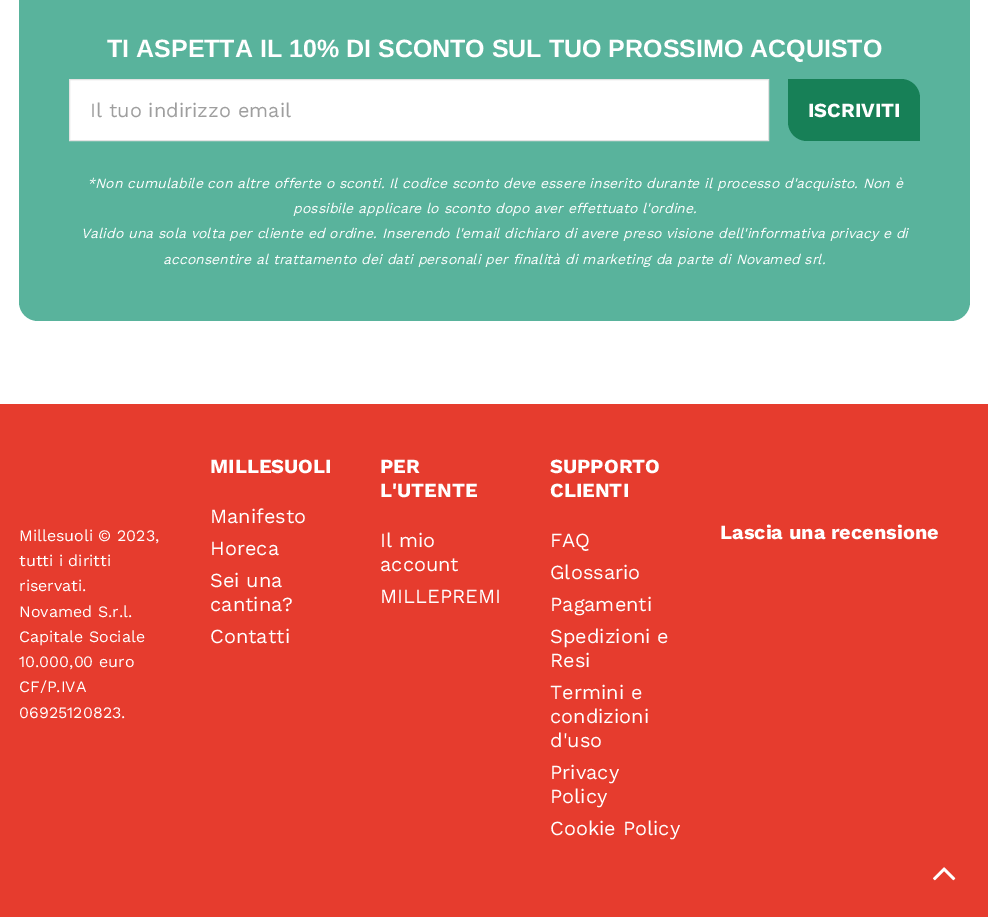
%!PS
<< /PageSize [988 917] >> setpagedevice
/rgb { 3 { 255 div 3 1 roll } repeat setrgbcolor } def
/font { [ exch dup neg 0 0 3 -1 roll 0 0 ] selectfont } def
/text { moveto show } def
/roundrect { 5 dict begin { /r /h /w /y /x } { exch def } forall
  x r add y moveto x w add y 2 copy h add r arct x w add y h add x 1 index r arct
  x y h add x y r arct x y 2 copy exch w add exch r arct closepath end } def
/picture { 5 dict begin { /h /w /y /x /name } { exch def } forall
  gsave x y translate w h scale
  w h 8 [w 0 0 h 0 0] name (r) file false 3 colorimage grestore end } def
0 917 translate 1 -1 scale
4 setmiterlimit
255 255 255 rgb
0 0 988 917 rectfill
89 179 156 rgb
19 -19 951 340 19 roundrect fill
255 255 255 rgb
69.5 79.5 moveto 699 0 rlineto 0 61 rlineto -699 0 rlineto closepath gsave fill grestore
227 227 227 rgb
stroke
23 128 87 rgb
788 79 moveto 113 0 rlineto 10.5 0 19 8.5 19 19 rcurveto 0 43 rlineto -113 0 rlineto -10.5 0 -19 -8.5 -19 -19 rcurveto closepath fill
230 60 46 rgb
0 404 988 513 rectfill
(img_01.rgb) 933 867 23 14 picture
/LiberationSans-Bold 25 font
255 255 255 rgb
(TI ASPETTA IL 10% DI SCONTO SUL TUO PROSSIMO ACQUISTO) 107 57 text
/WorkSans-Regular 20 font
158 158 158 rgb
(Il tuo indirizzo email) 90 117 text
/WorkSans-Bold 20 font
255 255 255 rgb
(ISCRIVITI) 808 117 text
/WorkSans-Italic 14 font
(*Non cumulabile con altre offerte o sconti. Il codice sconto deve essere inserito durante il processo d'acquisto. Non è) 87 188 text
(possibile applicare lo sconto dopo aver effettuato l'ordine.) 293 213 text
(Valido una sola volta per cliente ed ordine.) 81 238 text
(Inserendo l'email dichiaro di avere preso visione dell'informativa privacy e di) 382 238 text
(acconsentire al trattamento dei dati personali per finalità di marketing da parte di Novamed srl.) 163 264 text
/WorkSans-Regular 16 font
(Millesuoli © 2023,) 19 541 text
(tutti i diritti) 19 566 text
(riservati.) 19 591 text
(Novamed S.r.l.) 19 617 text
(Capitale Sociale) 19 642 text
(10.000,00 euro) 19 667 text
(CF/P.IVA) 19 692 text
(06925120823.) 19 718 text
/WorkSans-Bold 20 font
(MILLESUOLI) 210 473 text
/WorkSans-Regular 20 font
(Manifesto) 210 523 text
(Horeca) 210 555 text
(Sei una) 210 587 text
(cantina?) 210 611 text
(Contatti) 210 643 text
/WorkSans-Bold 20 font
(PER) 380 473 text
(L'UTENTE) 380 497 text
/WorkSans-Regular 20 font
(Il mio) 380 547 text
(account) 380 571 text
(MILLEPREMI) 380 603 text
/WorkSans-Bold 20 font
(SUPPORTO) 550 473 text
(CLIENTI) 550 497 text
/WorkSans-Regular 20 font
(FAQ) 550 547 text
(Glossario) 550 579 text
(Pagamenti) 550 611 text
(Spedizioni e) 550 643 text
(Resi) 550 667 text
(Termini e) 550 699 text
(condizioni) 550 723 text
(d'uso) 550 747 text
(Privacy) 550 779 text
(Policy) 550 803 text
(Cookie Policy) 550 835 text
/WorkSans-Bold 20 font
(Lascia una recensione) 720 539 text
showpage
